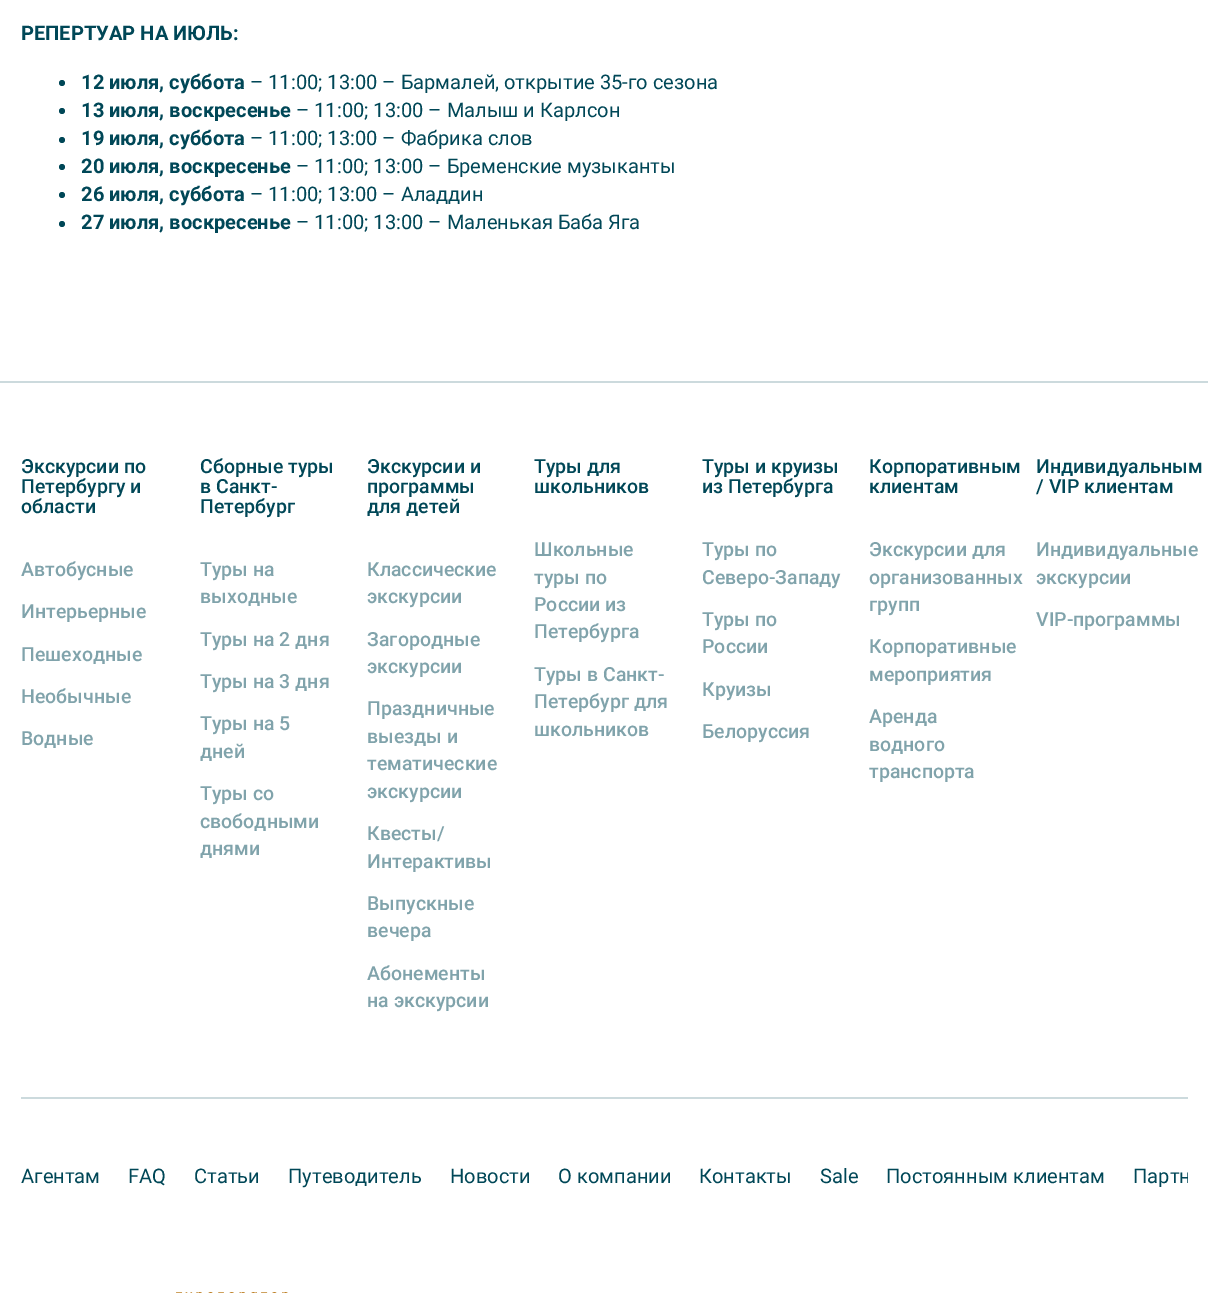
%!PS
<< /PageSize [1208 1293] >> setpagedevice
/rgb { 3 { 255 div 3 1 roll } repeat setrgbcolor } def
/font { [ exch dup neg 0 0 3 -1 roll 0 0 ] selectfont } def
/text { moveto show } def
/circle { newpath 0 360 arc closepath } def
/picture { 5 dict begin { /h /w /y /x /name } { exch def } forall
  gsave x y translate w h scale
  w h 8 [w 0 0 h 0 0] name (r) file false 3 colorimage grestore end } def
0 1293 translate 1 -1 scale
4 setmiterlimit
255 255 255 rgb
0 0 1208 1293 rectfill
0 71 87 rgb
62 83 3 circle fill
62 111 3 circle fill
62 140 3 circle fill
62 167 3 circle fill
62 195 3 circle fill
62 224 3 circle fill
204 218 221 rgb
0 381 1208 2 rectfill
21 1097 1167 2 rectfill
(img_01.rgb) 176 1292 112 1 picture
/Roboto-Bold 20.1 font
0 71 87 rgb
(РЕПЕРТУАР НА ИЮЛЬ:) 21 40 text
(12 июля, суббота) 81 89 text
/Roboto-Regular 20.1 font
(– 11:00; 13:00 – Бармалей, открытие 35-го сезона) 250 89 text
/Roboto-Bold 20.1 font
(13 июля, воскресенье) 81 117 text
/Roboto-Regular 20.1 font
(– 11:00; 13:00 – Малыш и Карлсон) 296 117 text
/Roboto-Bold 20.1 font
(19 июля, суббота) 81 145 text
/Roboto-Regular 20.1 font
(– 11:00; 13:00 – Фабрика слов) 250 145 text
/Roboto-Bold 20.1 font
(20 июля, воскресенье) 81 173 text
/Roboto-Regular 20.1 font
(– 11:00; 13:00 – Бременские музыканты) 296 173 text
/Roboto-Bold 20.1 font
(26 июля, суббота) 81 201 text
/Roboto-Regular 20.1 font
(– 11:00; 13:00 – Аладдин) 250 201 text
/Roboto-Bold 20.1 font
(27 июля, воскресенье) 81 229 text
/Roboto-Regular 20.1 font
(– 11:00; 13:00 – Маленькая Баба Яга) 296 229 text
/Roboto-Medium 19.5 font
(Экскурсии по) 21 473 text
(Петербургу и) 21 493 text
(области) 21 513 text
128 163 171 rgb
(Автобусные) 21 576 text
(Интерьерные) 21 618 text
(Пешеходные) 21 661 text
(Необычные) 21 703 text
(Водные) 21 745 text
0 71 87 rgb
(Сборные туры) 200 473 text
(в Санкт-) 200 493 text
(Петербург) 200 513 text
128 163 171 rgb
(Туры на) 200 576 text
(выходные) 200 603 text
(Туры на 2 дня) 200 646 text
(Туры на 3 дня) 200 688 text
(Туры на 5) 200 730 text
(дней) 200 758 text
(Туры со) 200 800 text
(свободными) 200 828 text
(днями) 200 855 text
0 71 87 rgb
(Экскурсии и) 367 473 text
(программы) 367 493 text
(для детей) 367 513 text
128 163 171 rgb
(Классические) 367 576 text
(экскурсии) 367 603 text
(Загородные) 367 646 text
(экскурсии) 367 673 text
(Праздничные) 367 715 text
(выезды и) 367 743 text
(тематические) 367 770 text
(экскурсии) 367 798 text
(Квесты/) 367 840 text
(Интерактивы) 367 868 text
(Выпускные) 367 910 text
(вечера) 367 937 text
(Абонементы) 367 980 text
(на экскурсии) 367 1007 text
0 71 87 rgb
(Туры для) 534 473 text
(школьников) 534 493 text
128 163 171 rgb
(Школьные) 534 556 text
(туры по) 534 584 text
(России из) 534 611 text
(Петербурга) 534 638 text
(Туры в Санкт-) 534 681 text
(Петербург для) 534 708 text
(школьников) 534 736 text
0 71 87 rgb
(Туры и круизы) 702 473 text
(из Петербурга) 702 493 text
128 163 171 rgb
(Туры по) 702 556 text
(Северо-Западу) 702 584 text
(Туры по) 702 626 text
(России) 702 653 text
(Круизы) 702 696 text
(Белоруссия) 702 738 text
0 71 87 rgb
(Корпоративным) 869 473 text
(клиентам) 869 493 text
128 163 171 rgb
(Экскурсии для) 869 556 text
(организованных) 869 584 text
(групп) 869 611 text
(Корпоративные) 869 653 text
(мероприятия) 869 681 text
(Аренда) 869 723 text
(водного) 869 751 text
(транспорта) 869 778 text
0 71 87 rgb
(Индивидуальным) 1036 473 text
(/ VIP клиентам) 1036 493 text
128 163 171 rgb
(Индивидуальные) 1036 556 text
(экскурсии) 1036 584 text
(VIP-программы) 1036 626 text
/Roboto-Regular 20.1 font
0 71 87 rgb
(Агентам) 21 1183 text
(FAQ) 128 1183 text
(Статьи) 194 1183 text
(Путеводитель) 288 1183 text
(Новости) 450 1183 text
(О компании) 558 1183 text
(Контакты) 699 1183 text
(Sale) 820 1183 text
(Постоянным клиентам) 886 1183 text
gsave
21 1098 1167 108 rectclip
(Партн) 1133 1183 text
grestore
showpage
